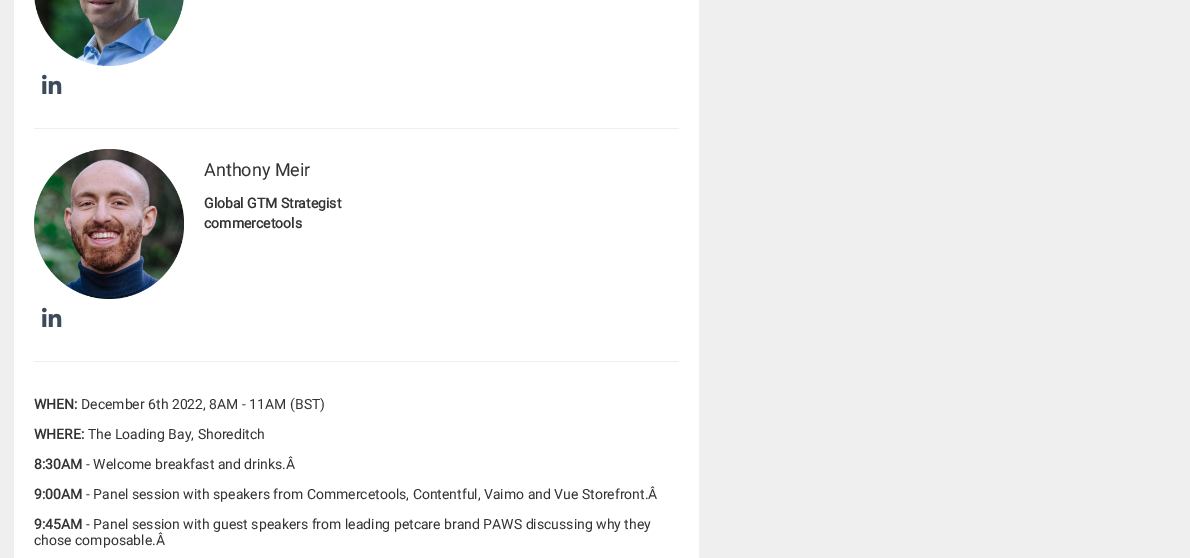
%!PS
<< /PageSize [1190 558] >> setpagedevice
/rgb { 3 { 255 div 3 1 roll } repeat setrgbcolor } def
/font { [ exch dup neg 0 0 3 -1 roll 0 0 ] selectfont } def
/text { moveto show } def
/picture { 5 dict begin { /h /w /y /x /name } { exch def } forall
  gsave x y translate w h scale
  w h 8 [w 0 0 h 0 0] name (r) file false 3 colorimage grestore end } def
0 558 translate 1 -1 scale
4 setmiterlimit
239 239 239 rgb
0 0 1190 558 rectfill
255 255 255 rgb
14 0 685 558 rectfill
239 239 239 rgb
34 128 645 1 rectfill
(img_01.rgb) 34 0 150 66 picture
(img_02.rgb) 42 74 20 20 picture
34 361 645 1 rectfill
(img_03.rgb) 34 149 150 150 picture
(img_02.rgb) 42 307 20 20 picture
/Roboto-Regular 18 font
51 51 51 rgb
(Anthony Meir) 204 176 text
/Roboto-Bold 14 font
(Global GTM Strategist) 204 208 text
(commercetools) 204 228 text
(WHEN:) 34 409 text
/Roboto-Regular 14 font
(December 6th 2022, 8AM - 11AM \(BST\)) 81 409 text
/Roboto-Bold 14 font
(WHERE:) 34 439 text
/Roboto-Regular 14 font
(The Loading Bay, Shoreditch) 88 439 text
/Roboto-Bold 14 font
(8:30AM) 34 469 text
/Roboto-Regular 14 font
(- Welcome breakfast and drinks.Â) 86 469 text
/Roboto-Bold 14 font
(9:00AM) 34 499 text
/Roboto-Regular 14 font
(- Panel session with speakers from Commercetools, Contentful, Vaimo and Vue Storefront.Â) 86 499 text
/Roboto-Bold 14 font
(9:45AM) 34 529 text
/Roboto-Regular 14 font
(- Panel session with guest speakers from leading petcare brand PAWS discussing why they) 86 529 text
(chose composable.Â) 34 545 text
showpage
